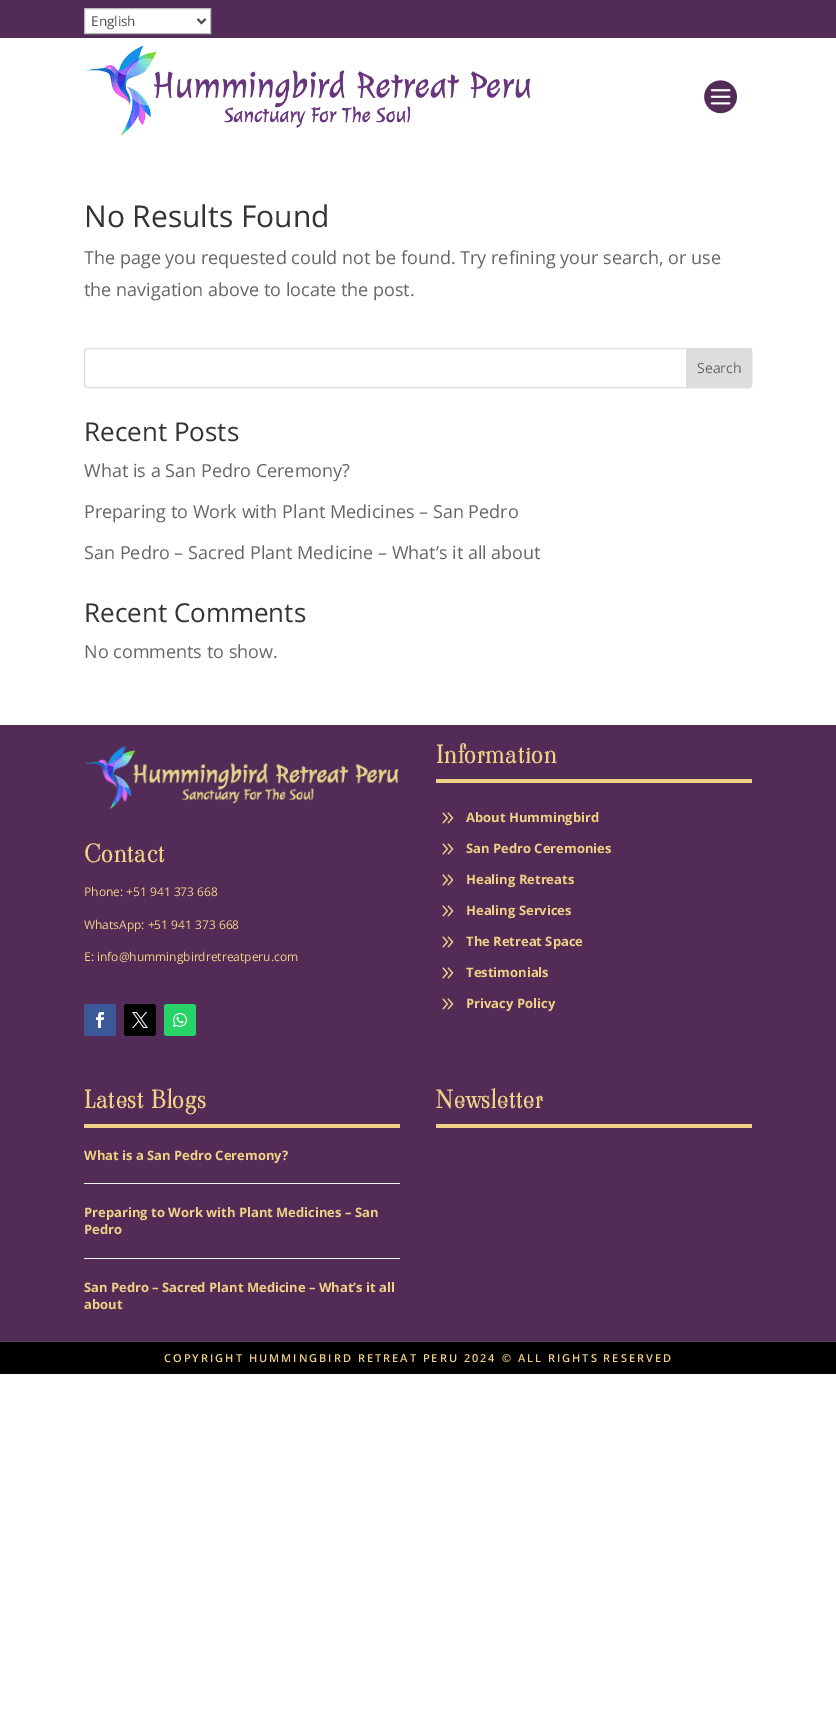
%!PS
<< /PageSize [836 1714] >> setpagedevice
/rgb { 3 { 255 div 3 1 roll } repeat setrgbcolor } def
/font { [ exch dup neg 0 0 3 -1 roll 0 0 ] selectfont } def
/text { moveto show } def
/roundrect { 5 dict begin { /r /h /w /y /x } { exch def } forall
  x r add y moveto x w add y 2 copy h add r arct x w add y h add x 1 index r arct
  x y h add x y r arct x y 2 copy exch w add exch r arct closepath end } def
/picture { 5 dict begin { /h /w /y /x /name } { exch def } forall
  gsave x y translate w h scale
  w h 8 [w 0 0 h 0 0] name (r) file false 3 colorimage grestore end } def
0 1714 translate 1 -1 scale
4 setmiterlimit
255 255 255 rgb
0 0 836 1714 rectfill
82 44 86 rgb
0 0 836 38 rectfill
255 255 255 rgb
84.5 8.5 moveto 126 0 rlineto 0 25 rlineto -126 0 rlineto closepath gsave fill grestore
187 187 187 rgb
stroke
78 78 78 rgb
2 setlinewidth
197.5 19 moveto 4 4 rlineto 4 -4 rlineto stroke
(img_01.rgb) 86 45 445 91 picture
(img_02.rgb) 704 80 33 34 picture
221 221 221 rgb
1 setlinewidth
84.5 348.5 667 39 2.5 roundrect stroke
686.5 348.5 moveto 62.5 0 rlineto 1.5 0 2.5 1 2.5 2.5 rcurveto 0 34 rlineto 0 1.5 -1 2.5 -2.5 2.5 rcurveto -62.5 0 rlineto closepath gsave fill grestore
stroke
82 44 86 rgb
0 725 836 616 rectfill
(img_03.rgb) 85 745 314 65 picture
59 89 152 rgb
84 1004 32 32 3 roundrect fill
(img_04.rgb) 96 1012 8 16 picture
0 0 0 rgb
124 1004 32 32 3 roundrect fill
(img_05.rgb) 132 1012 16 16 picture
37 211 102 rgb
164 1004 32 32 3 roundrect fill
(img_06.rgb) 173 1013 14 14 picture
240 209 134 rgb
436 779 316 4 rectfill
(img_07.rgb) 442 812 12 12 picture
(img_07.rgb) 442 843 12 12 picture
(img_07.rgb) 442 874 12 12 picture
(img_07.rgb) 442 905 12 12 picture
(img_07.rgb) 442 936 12 12 picture
(img_07.rgb) 442 967 12 12 picture
(img_07.rgb) 442 998 12 12 picture
84 1124 316 4 rectfill
240 243 246 rgb
84 1183 316 1 rectfill
84 1258 316 1 rectfill
240 209 134 rgb
436 1124 316 4 rectfill
0 0 0 rgb
0 1342 836 32 rectfill
74 74 74 rgb
0 1341 836 1 rectfill
/OpenSans-Regular 13.5 font
78 78 78 rgb
(English) 91 26 text
/OpenSans-Regular 30 font
51 51 51 rgb
(No Results Found) 84 227 text
/OpenSans-Regular 18 font
102 102 102 rgb
(The page you requested could not be found. Try refining your search, or use) 84 264 text
(the navigation above to locate the post.) 84 296 text
/OpenSans-Regular 14 font
(Search) 697 373 text
/OpenSans-Regular 26 font
51 51 51 rgb
(Recent Posts) 84 441 text
/OpenSans-Regular 18 font
102 102 102 rgb
(What is a San Pedro Ceremony?) 84 477 text
(Preparing to Work with Plant Medicines – San Pedro) 84 518 text
(San Pedro – Sacred Plant Medicine – What’s it all about) 84 559 text
/OpenSans-Regular 26 font
51 51 51 rgb
(Recent Comments) 84 622 text
/OpenSans-Regular 18 font
102 102 102 rgb
(No comments to show.) 84 658 text
/ViaodaLibre-Bold 24 font
240 209 134 rgb
84 862 moveto 1 0 (Contact) ashow
/OpenSans-Regular 12 font
(Phone: +51 941 373 668) 84 896 text
(WhatsApp: +51 941 373 668) 84 929 text
(E: info@hummingbirdretreatperu.com) 84 961 text
/ViaodaLibre-Bold 24 font
436 763 moveto 1 0 (Information) ashow
/OpenSans-Bold 13 font
(About Hummingbird) 466 822 text
(San Pedro Ceremonies) 466 853 text
(Healing Retreats) 466 884 text
(Healing Services) 466 915 text
(The Retreat Space) 466 946 text
(Testimonials) 466 977 text
(Privacy Policy) 466 1008 text
/ViaodaLibre-Bold 24 font
84 1108 moveto 1 0 (Latest Blogs) ashow
/OpenSans-Bold 13 font
(What is a San Pedro Ceremony?) 84 1160 text
(Preparing to Work with Plant Medicines – San) 84 1217 text
(Pedro) 84 1234 text
(San Pedro – Sacred Plant Medicine – What’s it all) 84 1292 text
(about) 84 1309 text
/ViaodaLibre-Bold 24 font
436 1108 moveto 1 0 (Newsletter) ashow
/OpenSans-SemiBold 11 font
164 1362 moveto 2 0 (COPYRIGHT HUMMINGBIRD RETREAT PERU 2024 © ALL RIGHTS RESERVED) ashow
showpage
